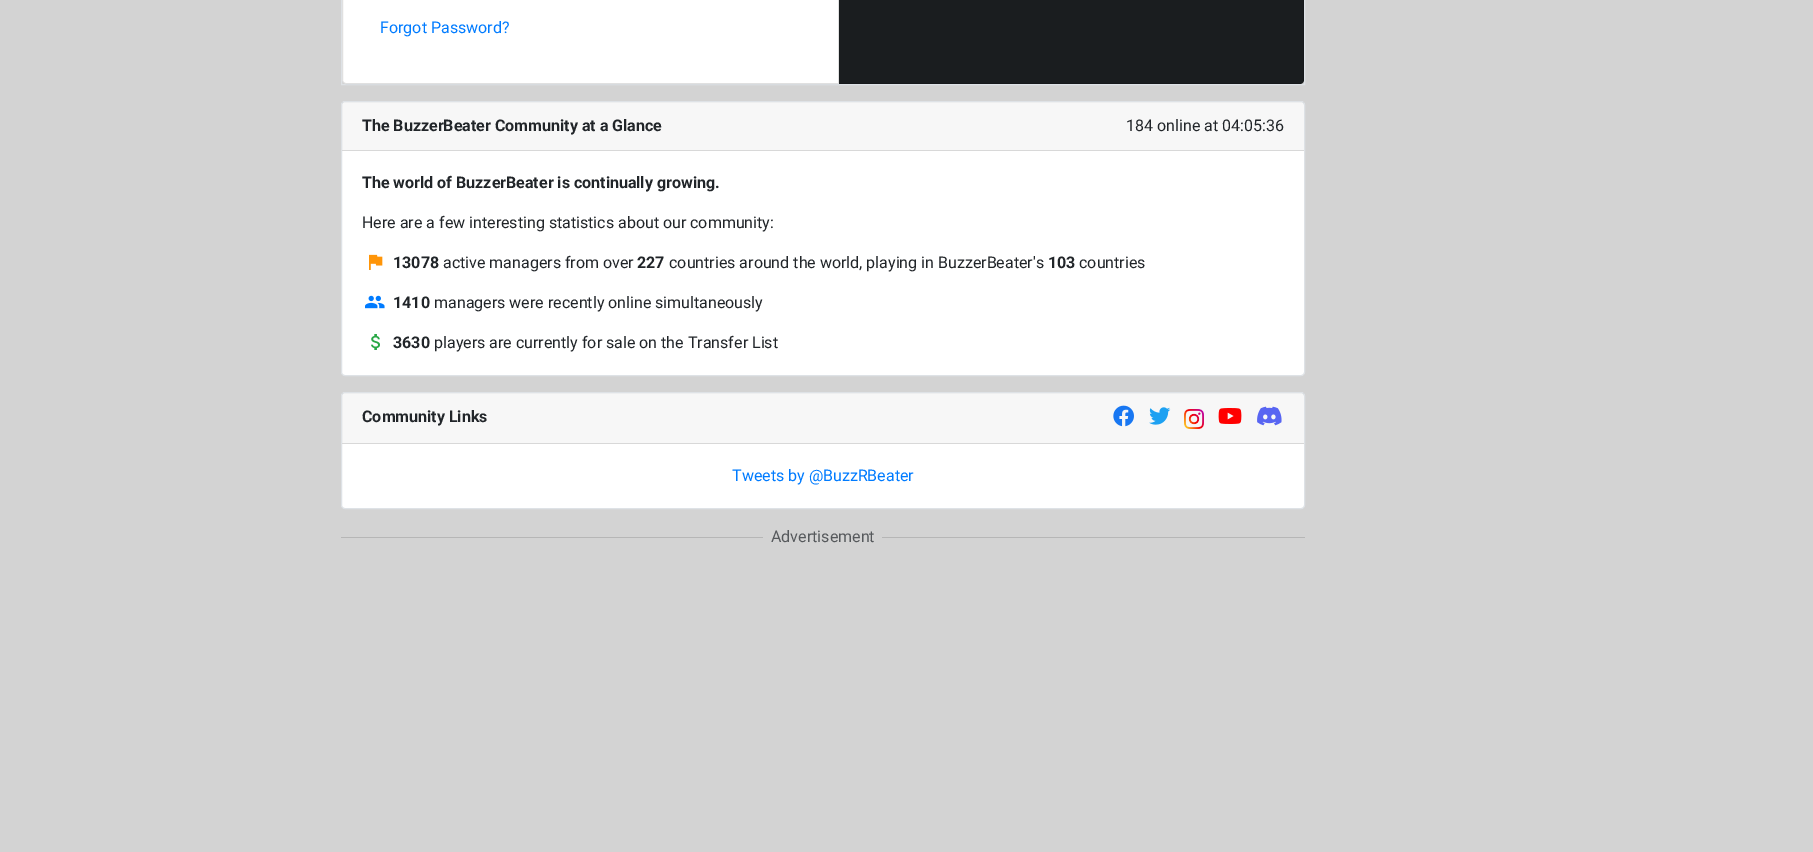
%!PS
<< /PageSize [1813 852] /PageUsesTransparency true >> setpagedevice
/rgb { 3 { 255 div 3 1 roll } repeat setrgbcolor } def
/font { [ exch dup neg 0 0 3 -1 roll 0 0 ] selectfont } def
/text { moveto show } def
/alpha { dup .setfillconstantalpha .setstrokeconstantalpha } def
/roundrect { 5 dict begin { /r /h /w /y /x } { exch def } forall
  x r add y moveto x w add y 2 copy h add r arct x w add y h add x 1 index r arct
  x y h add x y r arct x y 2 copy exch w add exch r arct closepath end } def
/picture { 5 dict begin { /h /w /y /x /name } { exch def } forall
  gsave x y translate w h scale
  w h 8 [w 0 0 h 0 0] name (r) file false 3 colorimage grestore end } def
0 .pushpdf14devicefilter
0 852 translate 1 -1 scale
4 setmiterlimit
211 211 211 rgb
0 0 1813 852 rectfill
222 226 230 rgb
341.5 -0.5 963 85 rectstroke
255 255 255 rgb
346 -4 moveto 493 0 rlineto 0 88 rlineto -493 0 rlineto -2 0 -4 -2 -4 -4 rcurveto 0 -80 rlineto 0 -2 2 -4 4 -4 rcurveto closepath fill
0.12 alpha
0 0 0 rgb
346 -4.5 moveto 492.5 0 rlineto 0 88 rlineto -492.5 0 rlineto -2 0 -3.5 -1.5 -3.5 -3.5 rcurveto 0 -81 rlineto 0 -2 1.5 -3.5 3.5 -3.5 rcurveto closepath stroke
1 alpha
26 29 31 rgb
839 -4 moveto 461 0 rlineto 2 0 4 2 4 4 rcurveto 0 80 rlineto 0 2 -2 4 -4 4 rcurveto -461 0 rlineto closepath fill
0.12 alpha
0 0 0 rgb
839 -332 moveto 461 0 rlineto 2 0 4 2 4 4 rcurveto 0 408 rlineto 0 2 -2 4 -4 4 rcurveto -461 0 rlineto closepath 839 -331 moveto 461 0 rlineto 2 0 3 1 3 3 rcurveto 0 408 rlineto 0 2 -1 3 -3 3 rcurveto -461 0 rlineto closepath eofill
1 alpha
255 255 255 rgb
341.5 101.5 963 274 3.5 roundrect gsave fill grestore
222 226 230 rgb
stroke
0.03 alpha
0 0 0 rgb
342 102 962 48 rectfill
1 alpha
216 216 216 rgb
342 150 962 1 rectfill
(img_01.rgb) 369 254 14 16 picture
(img_02.rgb) 365 295 20 14 picture
(img_03.rgb) 371 334 9 16 picture
255 255 255 rgb
341.5 392.5 963 116 3.5 roundrect gsave fill grestore
222 226 230 rgb
stroke
0.03 alpha
0 0 0 rgb
342 393 962 50 rectfill
1 alpha
216 216 216 rgb
342 443 962 1 rectfill
(img_04.rgb) 1113 405 21 22 picture
(img_05.rgb) 1149 407 22 18 picture
(img_06.rgb) 1184 409 20 20 picture
(img_07.rgb) 1218 408 24 16 picture
(img_08.rgb) 1257 406 25 20 picture
182 182 182 rgb
341 537 422 1 rectfill
882 537 423 1 rectfill
/Roboto-Regular 16 font
0 123 255 rgb
(Forgot Password?) 380 33 text
/Roboto-Bold 16 font
33 37 41 rgb
(The BuzzerBeater Community at a Glance) 362 131 text
/Roboto-Regular 16 font
(184 online at 04:05:36) 1126 131 text
/Roboto-Bold 16 font
(The world of BuzzerBeater is continually growing.) 362 188 text
/Roboto-Regular 16 font
(Here are a few interesting statistics about our community:) 362 228 text
/Roboto-Bold 16 font
(13078) 393 268 text
/Roboto-Regular 16 font
(active managers from over) 443 268 text
/Roboto-Bold 16 font
(227) 637 268 text
/Roboto-Regular 16 font
(countries around the world, playing in BuzzerBeater's) 669 268 text
/Roboto-Bold 16 font
(103) 1048 268 text
/Roboto-Regular 16 font
(countries) 1079 268 text
/Roboto-Bold 16 font
(1410) 393 308 text
/Roboto-Regular 16 font
(managers were recently online simultaneously) 434 308 text
/Roboto-Bold 16 font
(3630) 393 348 text
/Roboto-Regular 16 font
(players are currently for sale on the Transfer List) 434 348 text
/Roboto-Bold 16 font
(Community Links) 362 422 text
/Roboto-Regular 16 font
0 123 255 rgb
(Tweets by @BuzzRBeater) 732 481 text
86 89 92 rgb
(Advertisement) 771 542 text
.poppdf14devicefilter showpage
